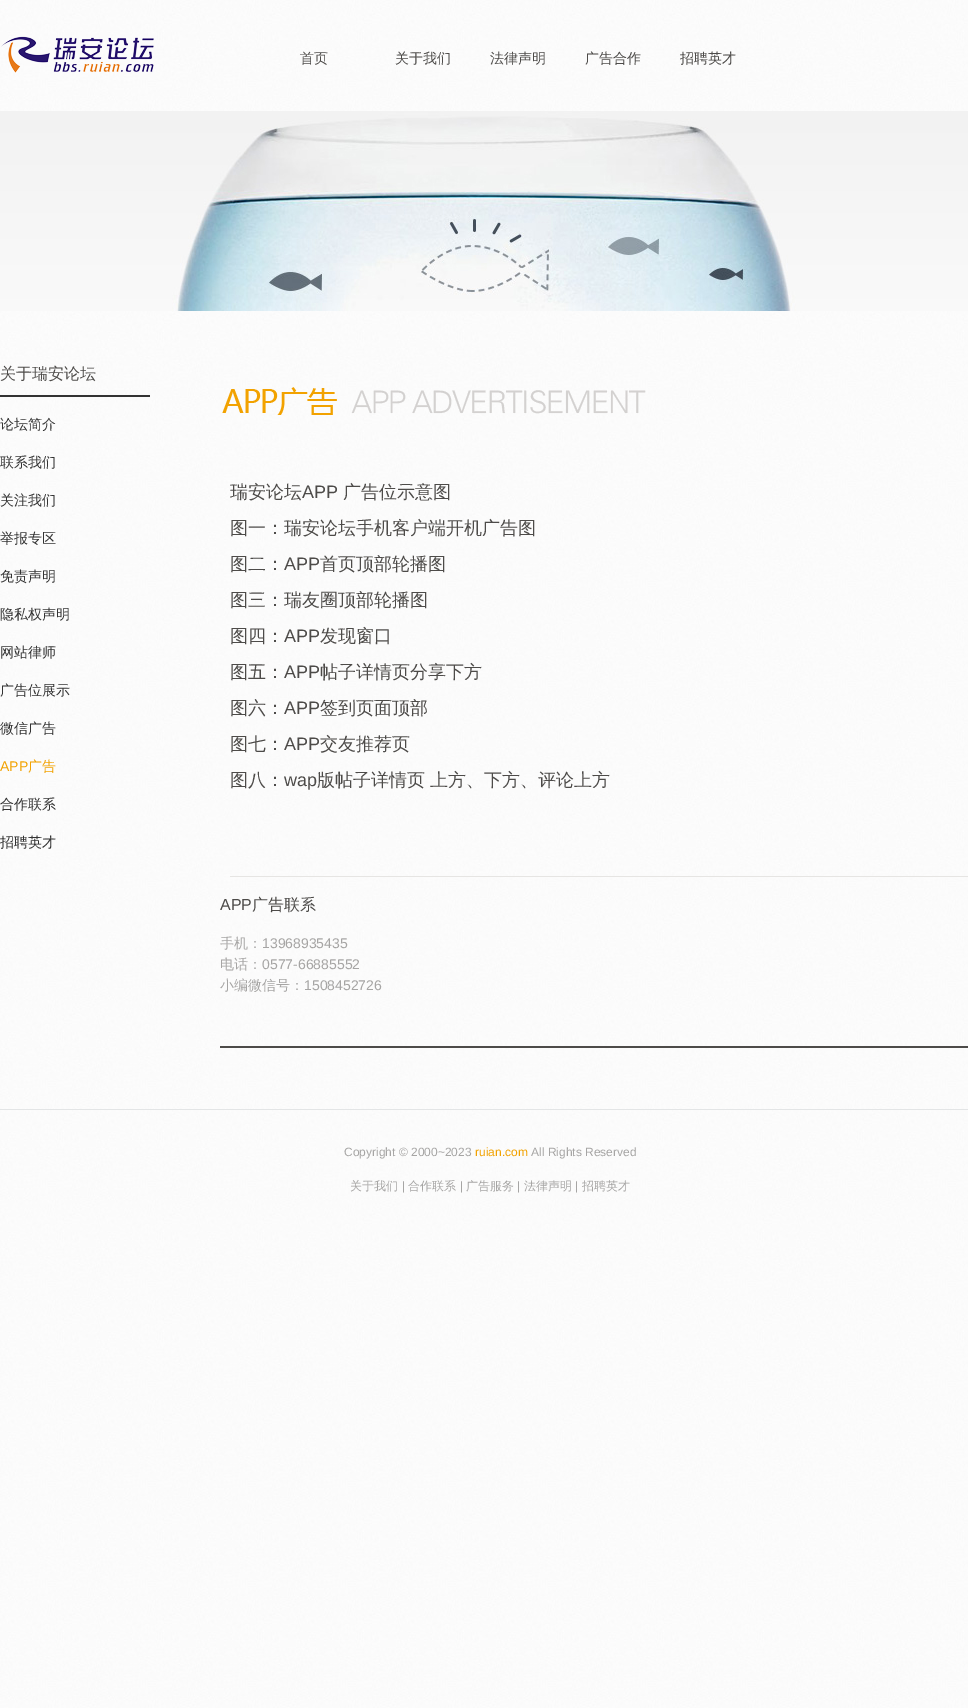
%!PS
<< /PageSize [968 1708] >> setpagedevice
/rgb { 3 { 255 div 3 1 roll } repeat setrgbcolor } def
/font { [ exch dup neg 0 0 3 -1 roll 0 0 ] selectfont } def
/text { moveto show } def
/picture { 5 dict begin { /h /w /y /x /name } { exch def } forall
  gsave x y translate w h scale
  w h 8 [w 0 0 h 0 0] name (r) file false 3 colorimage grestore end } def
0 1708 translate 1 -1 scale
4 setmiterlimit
255 255 255 rgb
0 0 968 1708 rectfill
(img_01.rgb) 0 0 968 1708 picture
(img_02.rgb) 1 36 153 37 picture
(img_03.rgb) 0 111 968 200 picture
51 51 51 rgb
0 395 150 2 rectfill
(img_04.rgb) 222 387 424 28 picture
230 229 227 rgb
230 876 738 1 rectfill
77 75 73 rgb
220 1046 748 2 rectfill
227 229 230 rgb
0 1109 968 1 rectfill
/WenQuanYiZenHei-Medium 14 font
77 75 73 rgb
(首页) 300 63 text
(关于我们) 395 63 text
(法律声明) 490 63 text
(广告合作) 585 63 text
(招聘英才) 680 63 text
/WenQuanYiZenHei-Medium 16 font
(关于瑞安论坛) 0 379 text
/WenQuanYiZenHei-Medium 14 font
51 51 51 rgb
(论坛简介) 0 429 text
(联系我们) 0 467 text
(关注我们) 0 505 text
(举报专区) 0 543 text
(免责声明) 0 581 text
(隐私权声明) 0 619 text
(网站律师) 0 657 text
(广告位展示) 0 695 text
(微信广告) 0 733 text
/LiberationSans-Regular 14 font
242 162 0 rgb
(APP) 0 771 text
/WenQuanYiZenHei-Medium 14 font
(广告) 28 771 text
51 51 51 rgb
(合作联系) 0 809 text
(招聘英才) 0 847 text
/WenQuanYiZenHei-Medium 18 font
77 75 73 rgb
(瑞安论坛) 230 498 text
/LiberationSans-Regular 18 font
(APP) 302 498 text
/WenQuanYiZenHei-Medium 18 font
(广告位示意图) 343 498 text
(图一：瑞安论坛手机客户端开机广告图) 230 534 text
(图二：) 230 570 text
/LiberationSans-Regular 18 font
(APP) 284 570 text
/WenQuanYiZenHei-Medium 18 font
(首页顶部轮播图) 320 570 text
(图三：瑞友圈顶部轮播图) 230 606 text
(图四：) 230 642 text
/LiberationSans-Regular 18 font
(APP) 284 642 text
/WenQuanYiZenHei-Medium 18 font
(发现窗口) 320 642 text
(图五：) 230 678 text
/LiberationSans-Regular 18 font
(APP) 284 678 text
/WenQuanYiZenHei-Medium 18 font
(帖子详情页分享下方) 320 678 text
(图六：) 230 714 text
/LiberationSans-Regular 18 font
(APP) 284 714 text
/WenQuanYiZenHei-Medium 18 font
(签到页面顶部) 320 714 text
(图七：) 230 750 text
/LiberationSans-Regular 18 font
(APP) 284 750 text
/WenQuanYiZenHei-Medium 18 font
(交友推荐页) 320 750 text
(图八：) 230 786 text
/LiberationSans-Regular 18 font
(wap) 284 786 text
/WenQuanYiZenHei-Medium 18 font
(版帖子详情页 上方、下方、评论上方) 317 786 text
/LiberationSans-Regular 16 font
(APP) 220 910 text
/WenQuanYiZenHei-Medium 16 font
(广告联系) 252 910 text
/WenQuanYiZenHei-Medium 14 font
166 165 164 rgb
(手机：) 220 948 text
/LiberationSans-Regular 14 font
(13968935435) 262 948 text
/WenQuanYiZenHei-Medium 14 font
(电话：) 220 969 text
/LiberationSans-Regular 14 font
(0577-66885552) 262 969 text
/WenQuanYiZenHei-Medium 14 font
(小编微信号：) 220 990 text
/LiberationSans-Regular 14 font
(1508452726) 304 990 text
/LiberationSans-Regular 12 font
(Copyright © 2000~2023) 344 1156 text
242 162 0 rgb
(ruian.com) 475 1156 text
166 165 164 rgb
(All Rights Reserved) 531 1156 text
/WenQuanYiZenHei-Medium 12 font
(关于我们) 350 1190 text
/LiberationSans-Regular 12 font
(|) 402 1190 text
/WenQuanYiZenHei-Medium 12 font
(合作联系) 408 1190 text
/LiberationSans-Regular 12 font
(|) 460 1190 text
/WenQuanYiZenHei-Medium 12 font
(广告服务) 466 1190 text
/LiberationSans-Regular 12 font
(|) 517 1190 text
/WenQuanYiZenHei-Medium 12 font
(法律声明) 524 1190 text
/LiberationSans-Regular 12 font
(|) 575 1190 text
/WenQuanYiZenHei-Medium 12 font
(招聘英才) 582 1190 text
showpage
